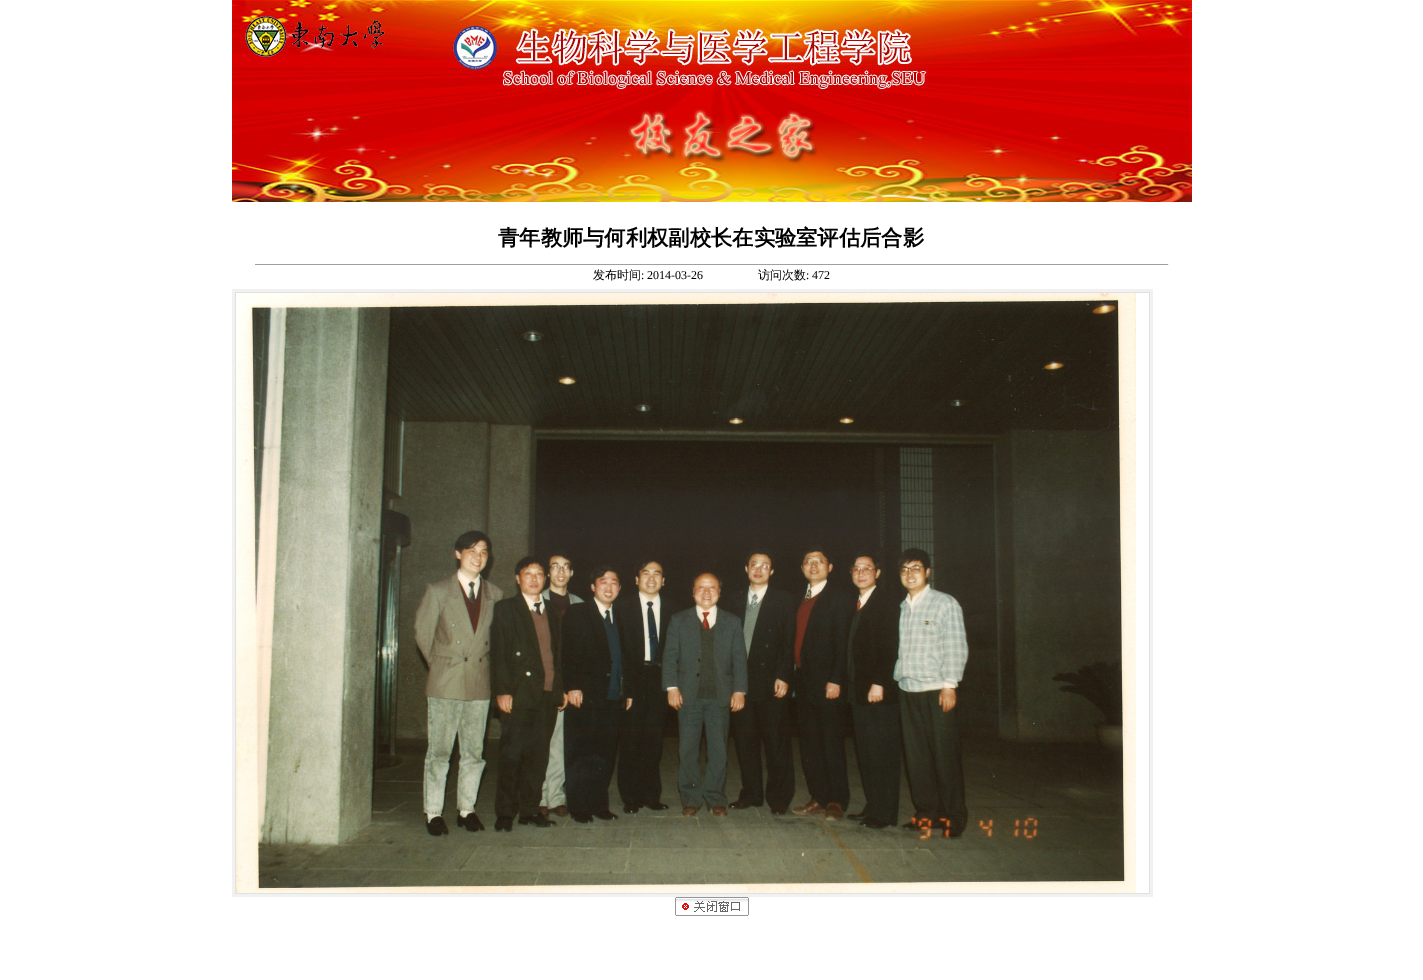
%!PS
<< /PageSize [1423 980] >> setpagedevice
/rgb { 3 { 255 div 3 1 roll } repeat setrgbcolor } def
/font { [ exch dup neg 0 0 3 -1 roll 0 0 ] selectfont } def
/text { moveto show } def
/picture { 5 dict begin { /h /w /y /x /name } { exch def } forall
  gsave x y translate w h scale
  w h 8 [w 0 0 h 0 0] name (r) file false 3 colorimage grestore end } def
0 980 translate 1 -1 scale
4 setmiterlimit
255 255 255 rgb
0 0 1423 980 rectfill
(img_01.rgb) 232 0 960 202 picture
159 159 159 rgb
255 264 914 1 rectfill
238 238 238 rgb
1168 264 1 1 rectfill
241 241 241 rgb
232 289 921 3 rectfill
1150 289 3 608 rectfill
232 894 921 3 rectfill
232 289 3 608 rectfill
225 225 225 rgb
235 292 915 1 rectfill
1149 292 1 602 rectfill
235 893 915 1 rectfill
235 292 1 602 rectfill
(img_02.rgb) 236 293 900 600 picture
(img_03.rgb) 675 897 74 19 picture
/WenQuanYiZenHei-Bold 21.3 font
0 0 0 rgb
(青年教师与何利权副校长在实验室评估后合影) 498 245 text
/WenQuanYiZenHei-Medium 12 font
(发布时间) 593 279 text
/LiberationSerif-Regular 12 font
(: 2014-03-26) 641 279 text
/WenQuanYiZenHei-Medium 12 font
(访问次数) 758 279 text
/LiberationSerif-Regular 12 font
(: 472) 806 279 text
showpage
